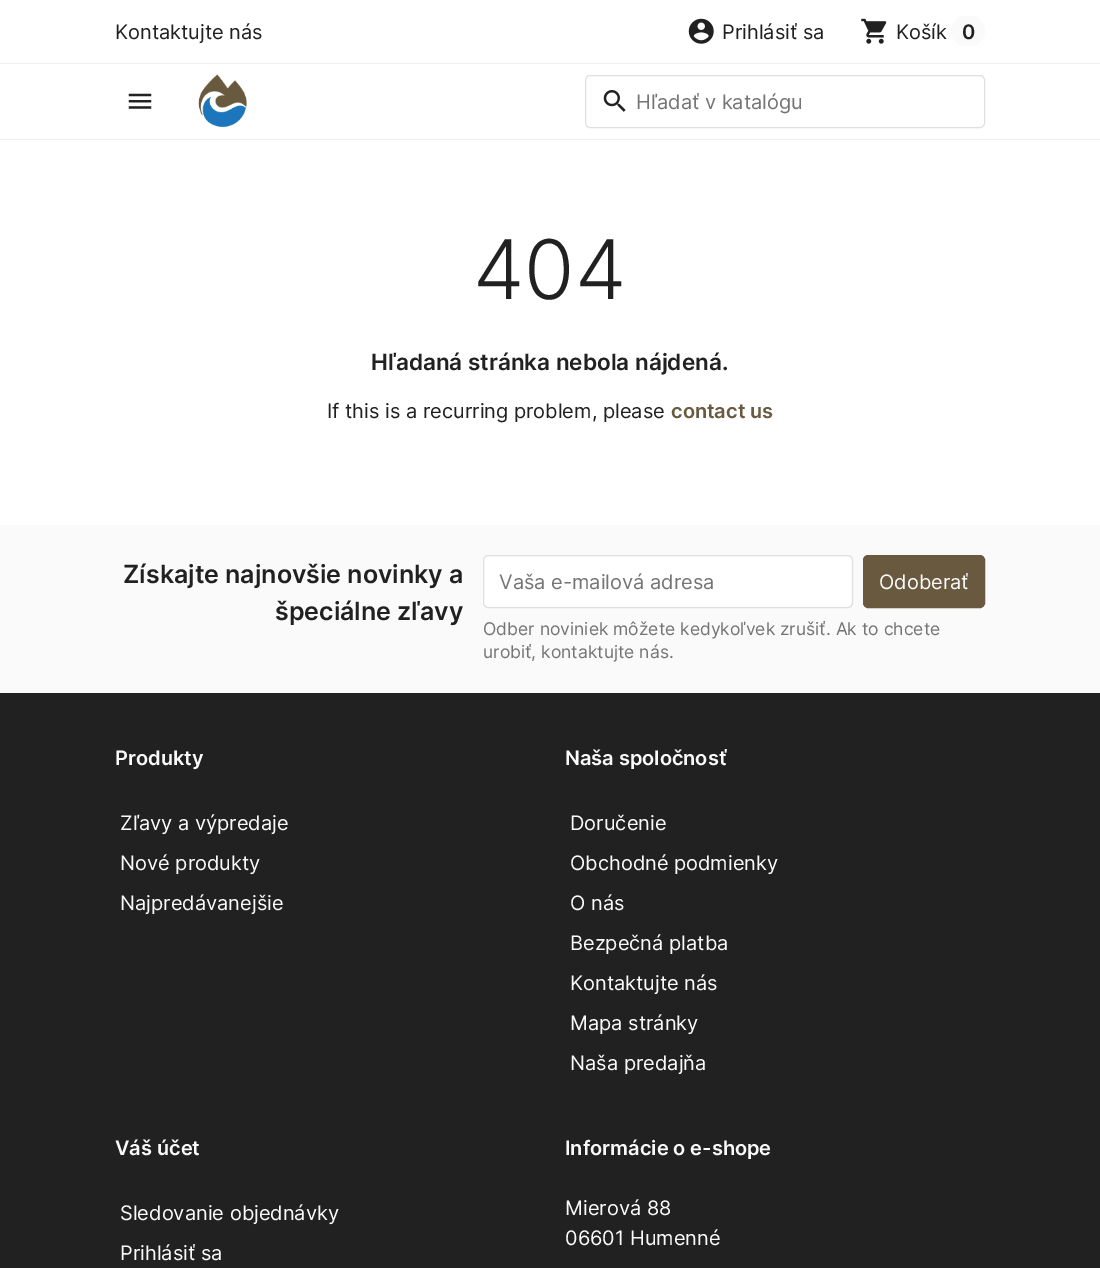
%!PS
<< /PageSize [1100 1268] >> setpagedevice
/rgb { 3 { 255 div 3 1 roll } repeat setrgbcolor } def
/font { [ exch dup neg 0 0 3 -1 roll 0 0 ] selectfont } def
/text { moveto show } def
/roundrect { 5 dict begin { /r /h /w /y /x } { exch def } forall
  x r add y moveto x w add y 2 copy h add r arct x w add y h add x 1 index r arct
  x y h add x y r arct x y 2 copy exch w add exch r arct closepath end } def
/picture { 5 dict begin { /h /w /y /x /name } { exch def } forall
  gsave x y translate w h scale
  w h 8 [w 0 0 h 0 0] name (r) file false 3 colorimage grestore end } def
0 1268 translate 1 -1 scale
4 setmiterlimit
255 255 255 rgb
0 0 1100 1268 rectfill
238 238 238 rgb
0 63 1100 1 rectfill
(img_01.rgb) 688 18 26 26 picture
(img_02.rgb) 861 18 26 26 picture
250 250 250 rgb
951 16 34 30 15 roundrect fill
238 238 238 rgb
0 139 1100 1 rectfill
(img_03.rgb) 128 93 24 16 picture
(img_04.rgb) 198 74 49 54 picture
224 224 224 rgb
585.5 75.5 399 52 4.5 roundrect stroke
(img_05.rgb) 603 90 23 22 picture
250 250 250 rgb
0 525 1100 168 rectfill
255 255 255 rgb
484 556 367 50 4 roundrect fill
224 224 224 rgb
483.5 555.5 369 52 4.5 roundrect stroke
105 90 63 rgb
863.5 555.5 121 52 4.5 roundrect gsave fill grestore
stroke
33 33 33 rgb
0 693 1100 575 rectfill
/Inter-Regular 20 font
(Kontaktujte nás) 115 39 text
(Prihlásiť sa) 722 39 text
(Košík) 896 39 text
/Inter-SemiBold 20 font
(0) 962 39 text
/Inter-Regular 20 font
117 117 117 rgb
(Hľadať v katalógu) 636 109 text
/Inter-Light 82 font
33 33 33 rgb
(404) 473 299 text
/Inter-SemiBold 22.5 font
(Hľadaná stránka nebola nájdená.) 371 370 text
/Inter-Regular 20 font
(If this is a recurring problem, please) 327 418 text
/Inter-SemiBold 20 font
105 90 63 rgb
(contact us) 671 418 text
/Inter-SemiBold 25 font
33 33 33 rgb
(Získajte najnovšie novinky a) 123 583 text
(špeciálne zľavy) 275 620 text
/Inter-Regular 20 font
117 117 117 rgb
(Vaša e-mailová adresa) 499 589 text
250 250 250 rgb
(Odoberať) 879 589 text
/Inter-Regular 17.5 font
117 117 117 rgb
(Odber noviniek môžete kedykoľvek zrušiť. Ak to chcete) 483 635 text
(urobiť, kontaktujte nás.) 483 658 text
/Inter-SemiBold 20 font
250 250 250 rgb
(Produkty) 115 765 text
/Inter-Regular 20 font
(Zľavy a výpredaje) 120 830 text
(Nové produkty) 120 870 text
(Najpredávanejšie) 120 910 text
/Inter-SemiBold 20 font
(Naša spoločnosť) 565 765 text
/Inter-Regular 20 font
(Doručenie) 570 830 text
(Obchodné podmienky) 570 870 text
(O nás) 570 910 text
(Bezpečná platba) 570 950 text
(Kontaktujte nás) 570 990 text
(Mapa stránky) 570 1030 text
(Naša predajňa) 570 1070 text
/Inter-SemiBold 20 font
(Váš účet) 115 1155 text
/Inter-Regular 20 font
(Sledovanie objednávky) 120 1220 text
(Prihlásiť sa) 120 1260 text
/Inter-SemiBold 20 font
(Informácie o e-shope) 565 1155 text
/Inter-Regular 20 font
(Mierová 88) 565 1215 text
(06601 Humenné) 565 1245 text
showpage
